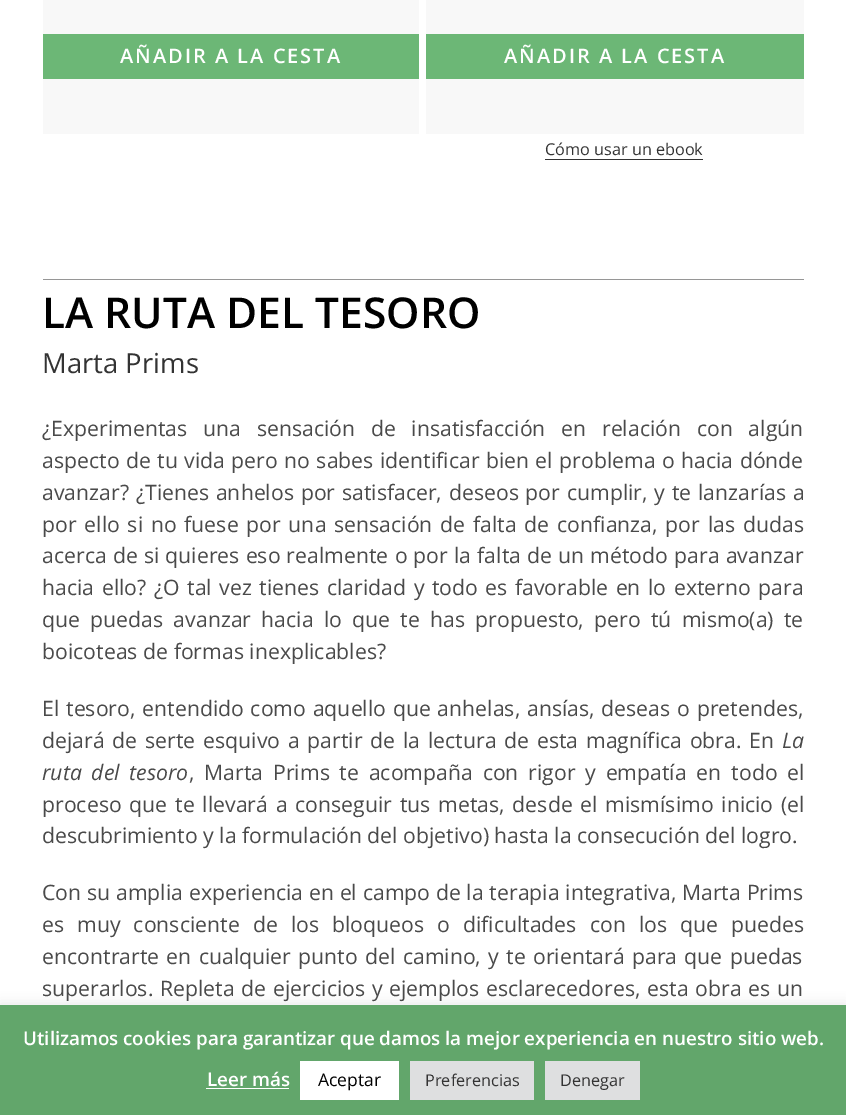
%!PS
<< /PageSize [846 1115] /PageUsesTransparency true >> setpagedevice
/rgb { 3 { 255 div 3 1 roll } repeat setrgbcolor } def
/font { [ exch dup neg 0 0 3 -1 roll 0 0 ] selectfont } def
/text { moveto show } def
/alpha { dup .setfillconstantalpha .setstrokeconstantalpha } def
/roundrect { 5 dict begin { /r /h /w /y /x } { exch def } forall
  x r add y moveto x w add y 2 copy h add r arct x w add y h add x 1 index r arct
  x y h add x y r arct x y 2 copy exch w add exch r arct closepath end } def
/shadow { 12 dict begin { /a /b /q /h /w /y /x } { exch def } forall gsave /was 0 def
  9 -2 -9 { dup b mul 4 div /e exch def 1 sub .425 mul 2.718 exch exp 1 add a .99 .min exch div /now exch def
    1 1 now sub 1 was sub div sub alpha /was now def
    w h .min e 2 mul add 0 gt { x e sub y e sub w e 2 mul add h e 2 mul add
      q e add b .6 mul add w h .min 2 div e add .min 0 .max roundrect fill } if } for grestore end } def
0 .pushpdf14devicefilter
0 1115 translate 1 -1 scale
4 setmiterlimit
255 255 255 rgb
0 0 846 1115 rectfill
248 248 248 rgb
43 0 376 134 rectfill
108 183 118 rgb
43 34 376 45 rectfill
248 248 248 rgb
426 0 378 134 rectfill
108 183 118 rgb
426 34 378 45 rectfill
51 51 51 rgb
545 159 158 1 rectfill
150 150 150 rgb
43 279 761 1 rectfill
172 171 171 rgb
0 1004 846 110 0 6 0.3 shadow
98 166 107 rgb
0 1005 846 110 rectfill
255 255 255 rgb
206 1088 83 1 rectfill
300 1061 99 39 rectfill
222 223 224 rgb
410 1061 124 39 rectfill
545 1061 95 39 rectfill
/OpenSans-SemiBold 20 font
255 255 255 rgb
120 63 moveto 2 0 (AÑADIR A LA CESTA) ashow
504 63 moveto 2 0 (AÑADIR A LA CESTA) ashow
/OpenSans-Regular 16.25 font
51 51 51 rgb
(Cómo usar un ebook) 545 155 text
/OpenSans-SemiBold 42.5 font
0 0 0 rgb
(LA RUTA DEL TESORO) 42 328 text
/OpenSans-Regular 27.5 font
51 51 51 rgb
(Marta Prims) 42 373 text
/OpenSans-Regular 21.25 font
74 74 74 rgb
42 436 moveto 10.25 0 32 (¿Experimentas una sensación de insatisfacción en relación con algún) widthshow
42 468 moveto 0.9 0 32 (aspecto de tu vida pero no sabes identificar bien el problema o hacia dónde) widthshow
42 500 moveto 1.25 0 32 (avanzar? ¿Tienes anhelos por satisfacer, deseos por cumplir, y te lanzarías a) widthshow
42 532 moveto 2.25 0 32 (por ello si no fuese por una sensación de falta de confianza, por las dudas) widthshow
42 563 moveto 0.6 0 32 (acerca de si quieres eso realmente o por la falta de un método para avanzar) widthshow
42 595 moveto 2 0 32 (hacia ello? ¿O tal vez tienes claridad y todo es favorable en lo externo para) widthshow
42 627 moveto 4.75 0 32 (que puedas avanzar hacia lo que te has propuesto, pero tú mismo\(a\) te) widthshow
(boicoteas de formas inexplicables?) 42 659 text
42 716 moveto 1.25 0 32 (El tesoro, entendido como aquello que anhelas, ansías, deseas o pretendes,) widthshow
42 748 moveto 2.25 0 32 (dejará de serte esquivo a partir de la lectura de esta magnífica obra. En) widthshow
/OpenSans-Italic 21.25 font
(La) 782 748 text
42 780 moveto 4.25 0 32 (ruta del tesoro) widthshow
/OpenSans-Regular 21.25 font
189 780 moveto 4.25 0 32 (, Marta Prims te acompaña con rigor y empatía en todo el) widthshow
42 812 moveto 2.25 0 32 (proceso que te llevará a conseguir tus metas, desde el mismísimo inicio \(el) widthshow
(descubrimiento y la formulación del objetivo\) hasta la consecución del logro.) 42 843 text
42 900 moveto 0.25 0 32 (Con su amplia experiencia en el campo de la terapia integrativa, Marta Prims) widthshow
42 932 moveto 7.5 0 32 (es muy consciente de los bloqueos o dificultades con los que puedes) widthshow
42 964 moveto 1.75 0 32 (encontrarte en cualquier punto del camino, y te orientará para que puedas) widthshow
42 996 moveto 1.25 0 32 (superarlos. Repleta de ejercicios y ejemplos esclarecedores, esta obra es un) widthshow
/OpenSans-SemiBold 18.75 font
255 255 255 rgb
(Utilizamos cookies para garantizar que damos la mejor experiencia en nuestro sitio web.) 23 1045 text
(Leer más) 207 1086 text
/OpenSans-Regular 17.5 font
0 0 0 rgb
(Aceptar) 318 1086 text
/OpenSans-Regular 16.25 font
51 51 51 rgb
(Preferencias) 425 1086 text
(Denegar) 560 1086 text
.poppdf14devicefilter showpage
